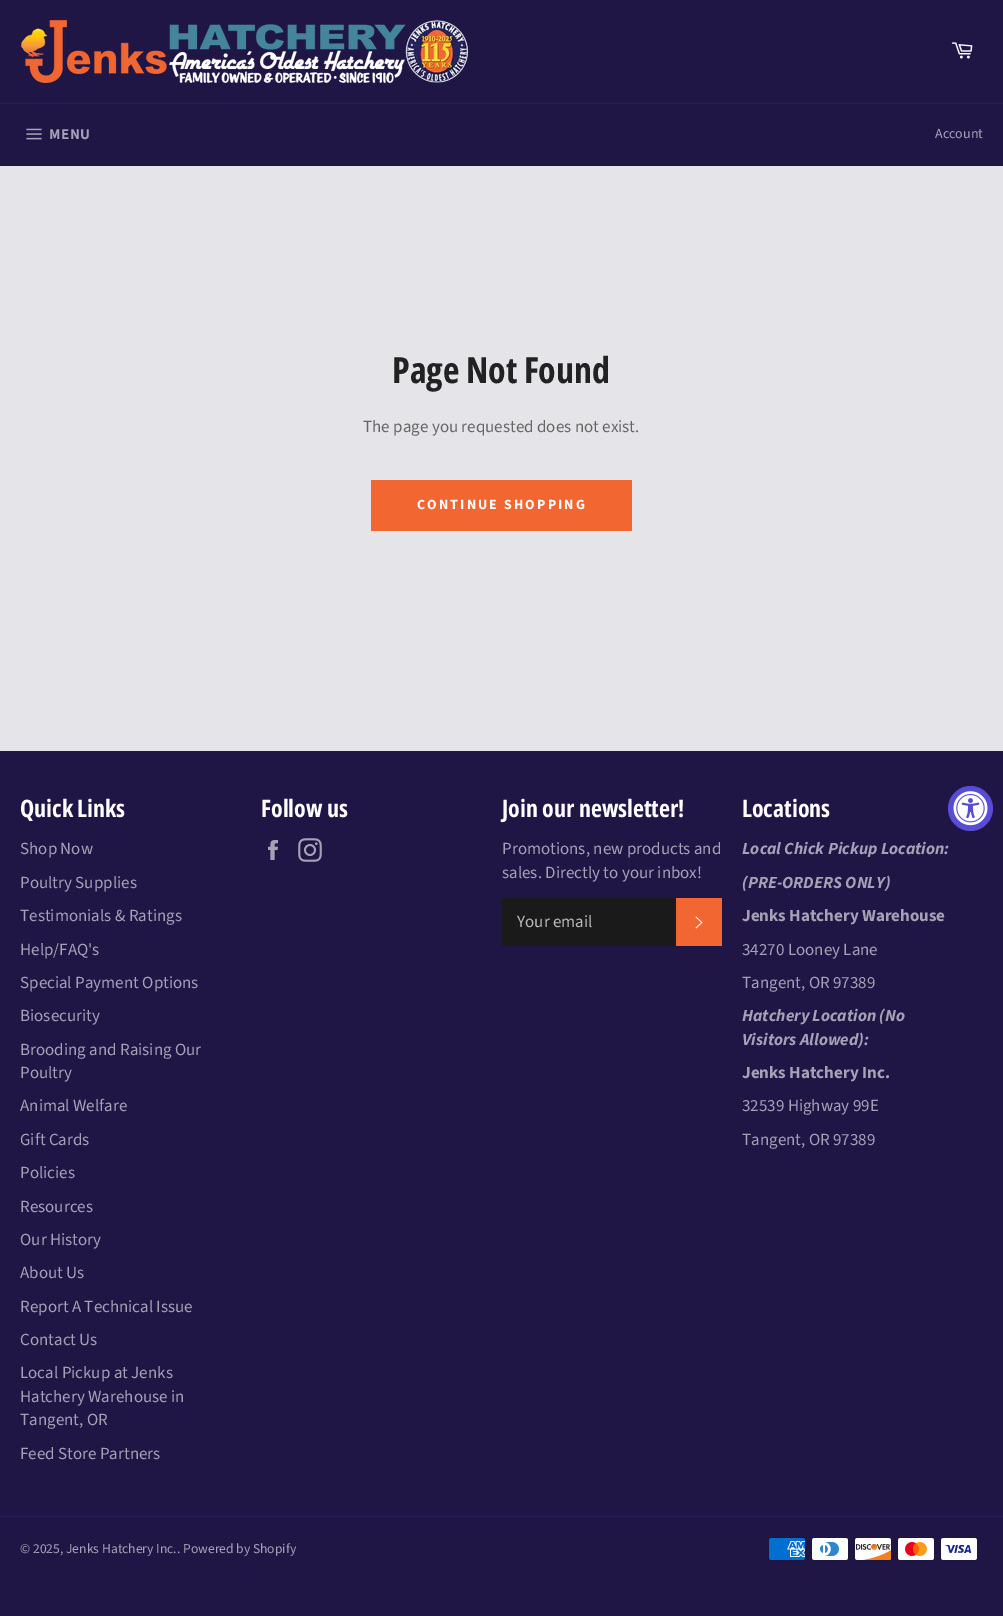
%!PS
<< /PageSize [1003 1616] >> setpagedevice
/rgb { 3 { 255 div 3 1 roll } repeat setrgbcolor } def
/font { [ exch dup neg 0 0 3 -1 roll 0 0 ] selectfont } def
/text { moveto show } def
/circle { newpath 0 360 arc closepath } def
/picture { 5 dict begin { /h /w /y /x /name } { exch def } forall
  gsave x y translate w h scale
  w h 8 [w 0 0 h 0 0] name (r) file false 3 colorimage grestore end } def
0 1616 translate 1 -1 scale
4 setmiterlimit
31 22 70 rgb
0 0 1003 1616 rectfill
229 229 233 rgb
0 166 1003 585 rectfill
(img_01.rgb) 21 20 447 63 picture
(img_02.rgb) 951 42 22 17 picture
40 28 89 rgb
0 103 1003 1 rectfill
(img_03.rgb) 26 128 16 12 picture
242 102 49 rgb
371 480 261 51 rectfill
(img_04.rgb) 268 840 10 20 picture
(img_05.rgb) 298 838 24 24 picture
26 26 26 rgb
502 898 174 48 rectfill
242 102 49 rgb
676 898 46 48 rectfill
(img_06.rgb) 695 916 8 13 picture
40 28 89 rgb
0 1516 1003 1 rectfill
(img_07.rgb) 768 1537 38 24 picture
(img_08.rgb) 811 1537 38 24 picture
(img_09.rgb) 854 1537 38 24 picture
(img_10.rgb) 897 1537 38 24 picture
(img_11.rgb) 940 1537 38 24 picture
87 76 213 rgb
970.5 808.5 22.5 circle fill
(img_12.rgb) 953 791 35 35 picture
/SourceSansPro-Bold 15 font
165 162 181 rgb
49 139 moveto 0.5 0 (MENU) ashow
/SourceSansPro-Regular 14 font
(Account) 935 138 text
/OpenSansCondensed-Bold 36 font
34 34 34 rgb
(Page Not Found) 392 383 text
/SourceSansPro-Regular 17 font
102 102 102 rgb
(The page you requested does not exist.) 363 432 text
/SourceSansPro-Bold 14 font
255 255 255 rgb
417 509 moveto 2.1 0 (CONTINUE SHOPPING) ashow
/OpenSansCondensed-Bold 24 font
(Quick Links) 20 817 text
/SourceSansPro-Regular 17 font
165 162 181 rgb
(Shop Now) 20 854 text
(Poultry Supplies) 20 888 text
(Testimonials & Ratings) 20 921 text
(Help/FAQ's) 20 955 text
(Special Payment Options) 20 988 text
(Biosecurity) 20 1021 text
(Brooding and Raising Our) 20 1055 text
(Poultry) 20 1078 text
(Animal Welfare) 20 1111 text
(Gift Cards) 20 1145 text
(Policies) 20 1178 text
(Resources) 20 1212 text
(Our History) 20 1245 text
(About Us) 20 1278 text
(Report A Technical Issue) 20 1312 text
(Contact Us) 20 1345 text
(Local Pickup at Jenks) 20 1378 text
(Hatchery Warehouse in) 20 1402 text
(Tangent, OR) 20 1425 text
(Feed Store Partners) 20 1459 text
/OpenSansCondensed-Bold 24 font
255 255 255 rgb
(Follow us) 261 817 text
(Join our newsletter!) 502 817 text
/SourceSansPro-Regular 17 font
165 162 181 rgb
(Promotions, new products and) 502 854 text
(sales. Directly to your inbox!) 502 878 text
186 186 186 rgb
(Your email) 517 927 text
/OpenSansCondensed-Bold 24 font
255 255 255 rgb
(Locations) 742 817 text
/SourceSansPro-BoldItalic 17 font
165 162 181 rgb
(Local Chick Pickup Location:) 742 854 text
(\(PRE-ORDERS ONLY\)) 742 888 text
/SourceSansPro-Bold 17 font
(Jenks Hatchery Warehouse) 742 921 text
/SourceSansPro-Regular 17 font
(34270 Looney Lane) 742 955 text
(Tangent, OR 97389) 742 988 text
/SourceSansPro-BoldItalic 17 font
(Hatchery Location \(No) 742 1021 text
(Visitors Allowed\):) 742 1045 text
/SourceSansPro-Bold 17 font
(Jenks Hatchery Inc.) 742 1078 text
/SourceSansPro-Regular 17 font
(32539 Highway 99E) 742 1111 text
(Tangent, OR 97389) 742 1145 text
/SourceSansPro-Regular 13.6 font
(© 2025, Jenks Hatchery Inc.. Powered by Shopify) 20 1553 text
showpage
